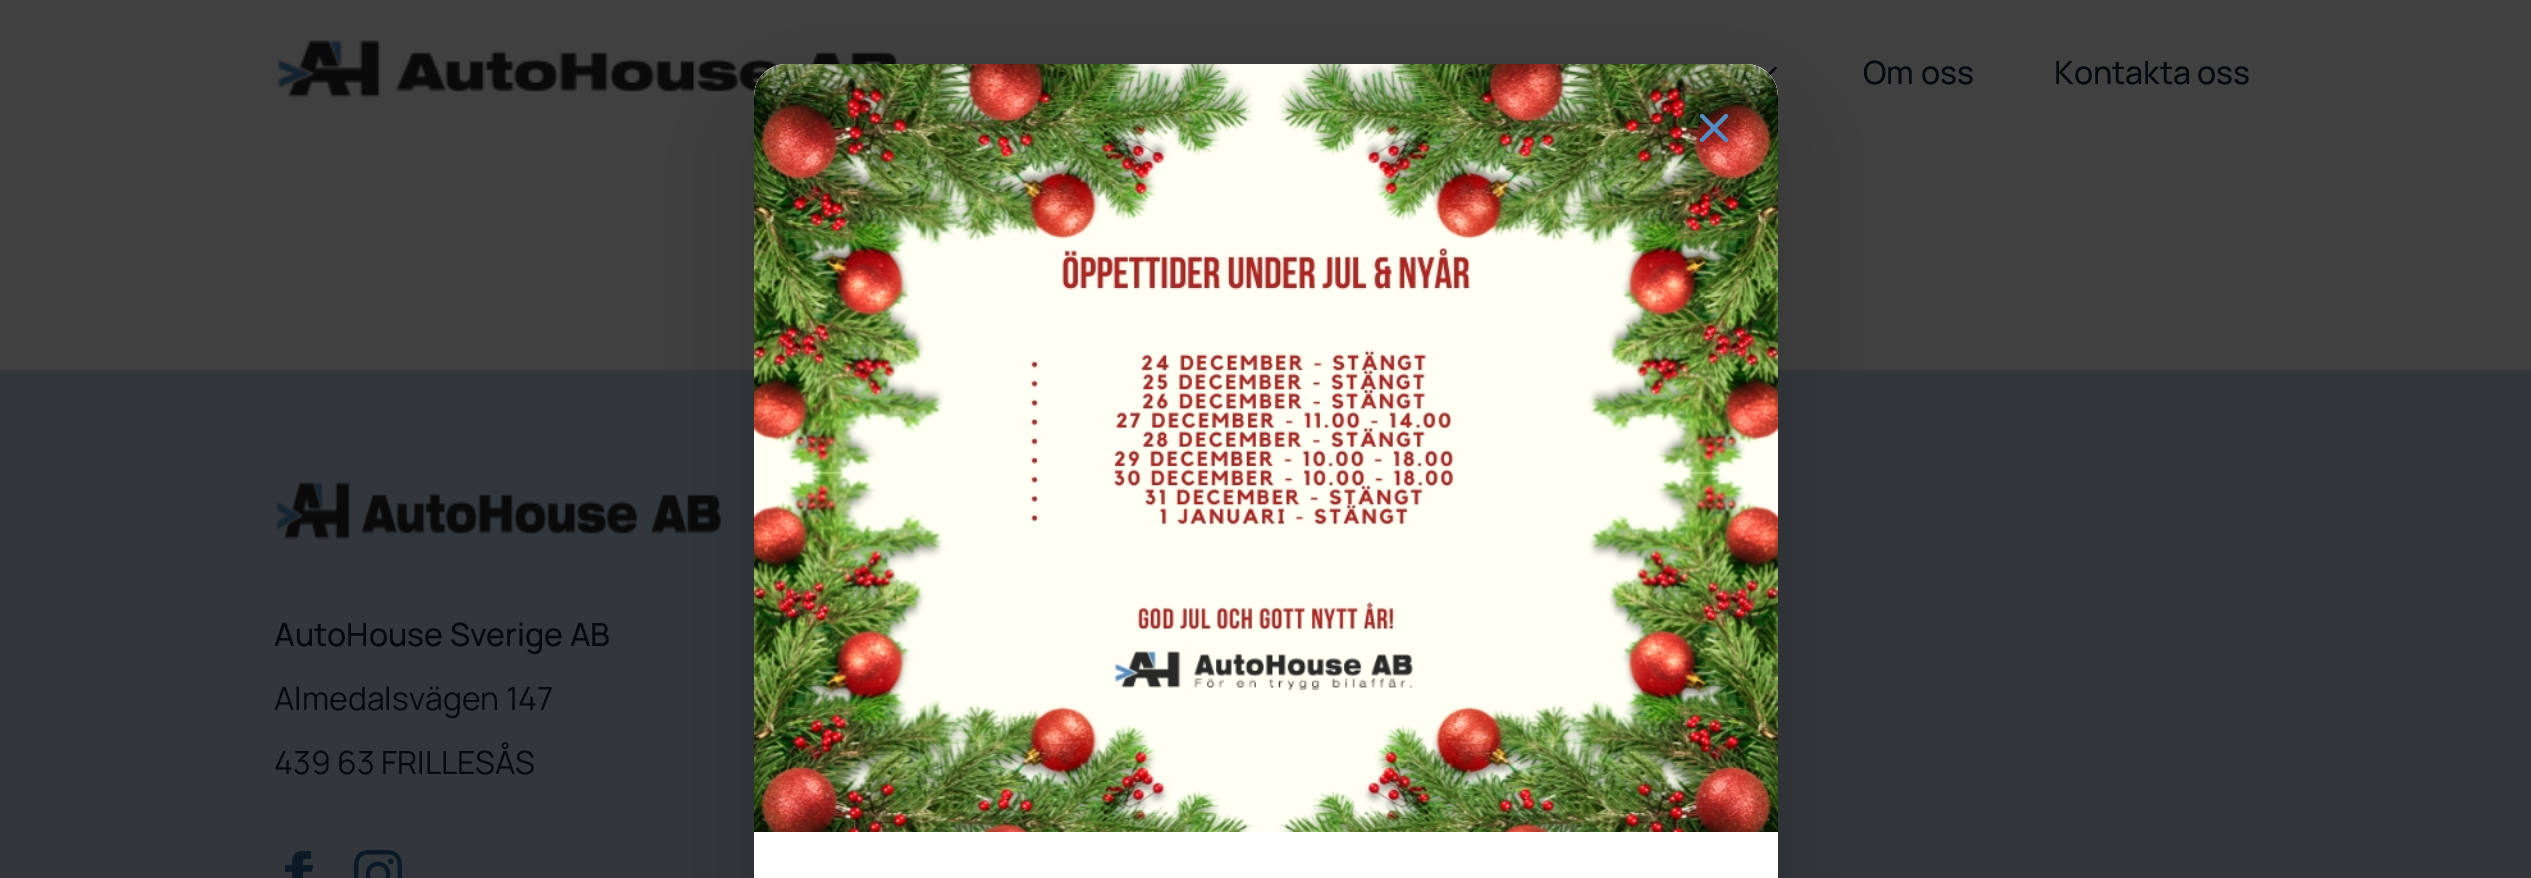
%!PS
<< /PageSize [2531 878] /PageUsesTransparency true >> setpagedevice
/rgb { 3 { 255 div 3 1 roll } repeat setrgbcolor } def
/font { [ exch dup neg 0 0 3 -1 roll 0 0 ] selectfont } def
/text { moveto show } def
/alpha { dup .setfillconstantalpha .setstrokeconstantalpha } def
/roundrect { 5 dict begin { /r /h /w /y /x } { exch def } forall
  x r add y moveto x w add y 2 copy h add r arct x w add y h add x 1 index r arct
  x y h add x y r arct x y 2 copy exch w add exch r arct closepath end } def
/shadow { 12 dict begin { /a /b /q /h /w /y /x } { exch def } forall gsave /was 0 def
  9 -2 -9 { dup b mul 4 div /e exch def 1 sub .425 mul 2.718 exch exp 1 add a .99 .min exch div /now exch def
    1 1 now sub 1 was sub div sub alpha /was now def
    w h .min e 2 mul add 0 gt { x e sub y e sub w e 2 mul add h e 2 mul add
      q e add b .6 mul add w h .min 2 div e add .min 0 .max roundrect fill } if } for grestore end } def
/picture { 5 dict begin { /h /w /y /x /name } { exch def } forall
  gsave x y translate w h scale
  w h 8 [w 0 0 h 0 0] name (r) file false 3 colorimage grestore end } def
0 .pushpdf14devicefilter
0 878 translate 1 -1 scale
4 setmiterlimit
64 64 64 rgb
0 0 2531 878 rectfill
(img_02.rgb) 277 40 620 58 picture
6 10 15 rgb
2.7 setlinewidth
1 setlinecap
1 setlinejoin
1775.5 68 moveto -9.5 9.5 rlineto -9.5 -9.5 rlineto stroke
51 55 59 rgb
0 370 2531 508 rectfill
(img_03.rgb) 276 482 445 58 picture
0 0 0 rgb
778 138 976 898 8 50 0.25 shadow
255 255 255 rgb
786 64 moveto 960 0 rlineto 17.5 0 32 14.5 32 32 rcurveto 0 782 rlineto -1024 0 rlineto 0 -782 rlineto 0 -17.5 14.5 -32 32 -32 rcurveto closepath fill
(img_01.rgb) 754 64 1024 768 picture
81 141 196 rgb
4 setlinewidth
1702 140 moveto 24 -24 rlineto 1702 116 moveto 24 24 rlineto stroke
(img_04.rgb) 285 851 29 27 picture
(img_05.rgb) 354 850 48 28 picture
/Manrope-ExtraLight 32 font
6 10 15 rgb
(Om oss) 1863 84 text
(Kontakta oss) 2054 84 text
(AutoHouse Sverige AB) 274 646 text
/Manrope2-ExtraLight 32 font
(Almedalsvägen 147) 274 710 text
(439 63 FRILLESÅS) 274 774 text
.poppdf14devicefilter showpage
